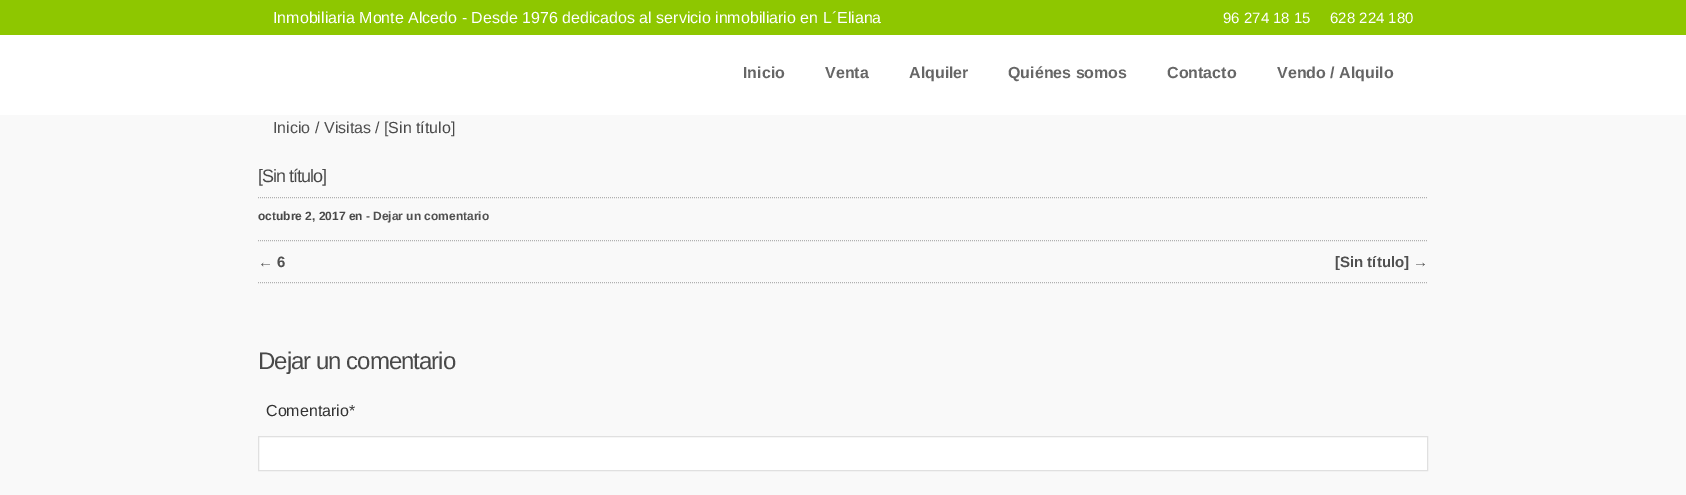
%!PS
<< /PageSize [1686 495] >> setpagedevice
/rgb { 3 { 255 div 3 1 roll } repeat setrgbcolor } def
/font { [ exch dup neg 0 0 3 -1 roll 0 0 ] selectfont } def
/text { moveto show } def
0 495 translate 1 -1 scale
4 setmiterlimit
249 249 249 rgb
0 0 1686 495 rectfill
255 255 255 rgb
0 35 1686 80 rectfill
142 199 0 rgb
0 0 1686 35 rectfill
176 176 176 rgb
[1 1] 0 setdash
258 197.5 moveto 1170 0 rlineto stroke
258 240.5 moveto 1170 0 rlineto stroke
258 282.5 moveto 1170 0 rlineto stroke
255 255 255 rgb
258.5 436.5 moveto 1169 0 rlineto 0 34 rlineto -1169 0 rlineto closepath gsave fill grestore
224 224 224 rgb
[] 0 setdash
stroke
/LiberationSans-Regular 16 font
255 255 255 rgb
(Inmobiliaria Monte Alcedo - Desde 1976 dedicados al servicio inmobiliario en L´Eliana) 273 23 text
/LiberationSans-Regular 15 font
(96 274 18 15) 1223 23 text
(628 224 180) 1330 23 text
/LiberationSans-Bold 16 font
102 102 102 rgb
(Inicio) 743 78 text
(Venta) 825 78 text
(Alquiler) 909 78 text
(Quiénes somos) 1008 78 text
(Contacto) 1167 78 text
(Vendo / Alquilo) 1277 78 text
/LiberationSans-Regular 16 font
80 80 80 rgb
(Inicio) 273 133 text
73 73 73 rgb
(/) 315 133 text
80 80 80 rgb
(Visitas) 324 133 text
73 73 73 rgb
(/ [Sin título]) 375 133 text
/LiberationSans-Regular 18 font
258 182 moveto -1 0 ([Sin título]) ashow
/LiberationSans-Bold 12 font
(octubre 2, 2017 en -) 258 220 text
80 80 80 rgb
(Dejar un comentario) 373 220 text
/LiberationSans-Bold 15 font
(← 6) 258 267 text
([Sin título] →) 1335 267 text
/LiberationSans-Regular 24 font
73 73 73 rgb
258 369 moveto -1 0 (Dejar un comentario) ashow
/LiberationSans-Regular 16 font
51 51 51 rgb
(Comentario*) 266 416 text
showpage
